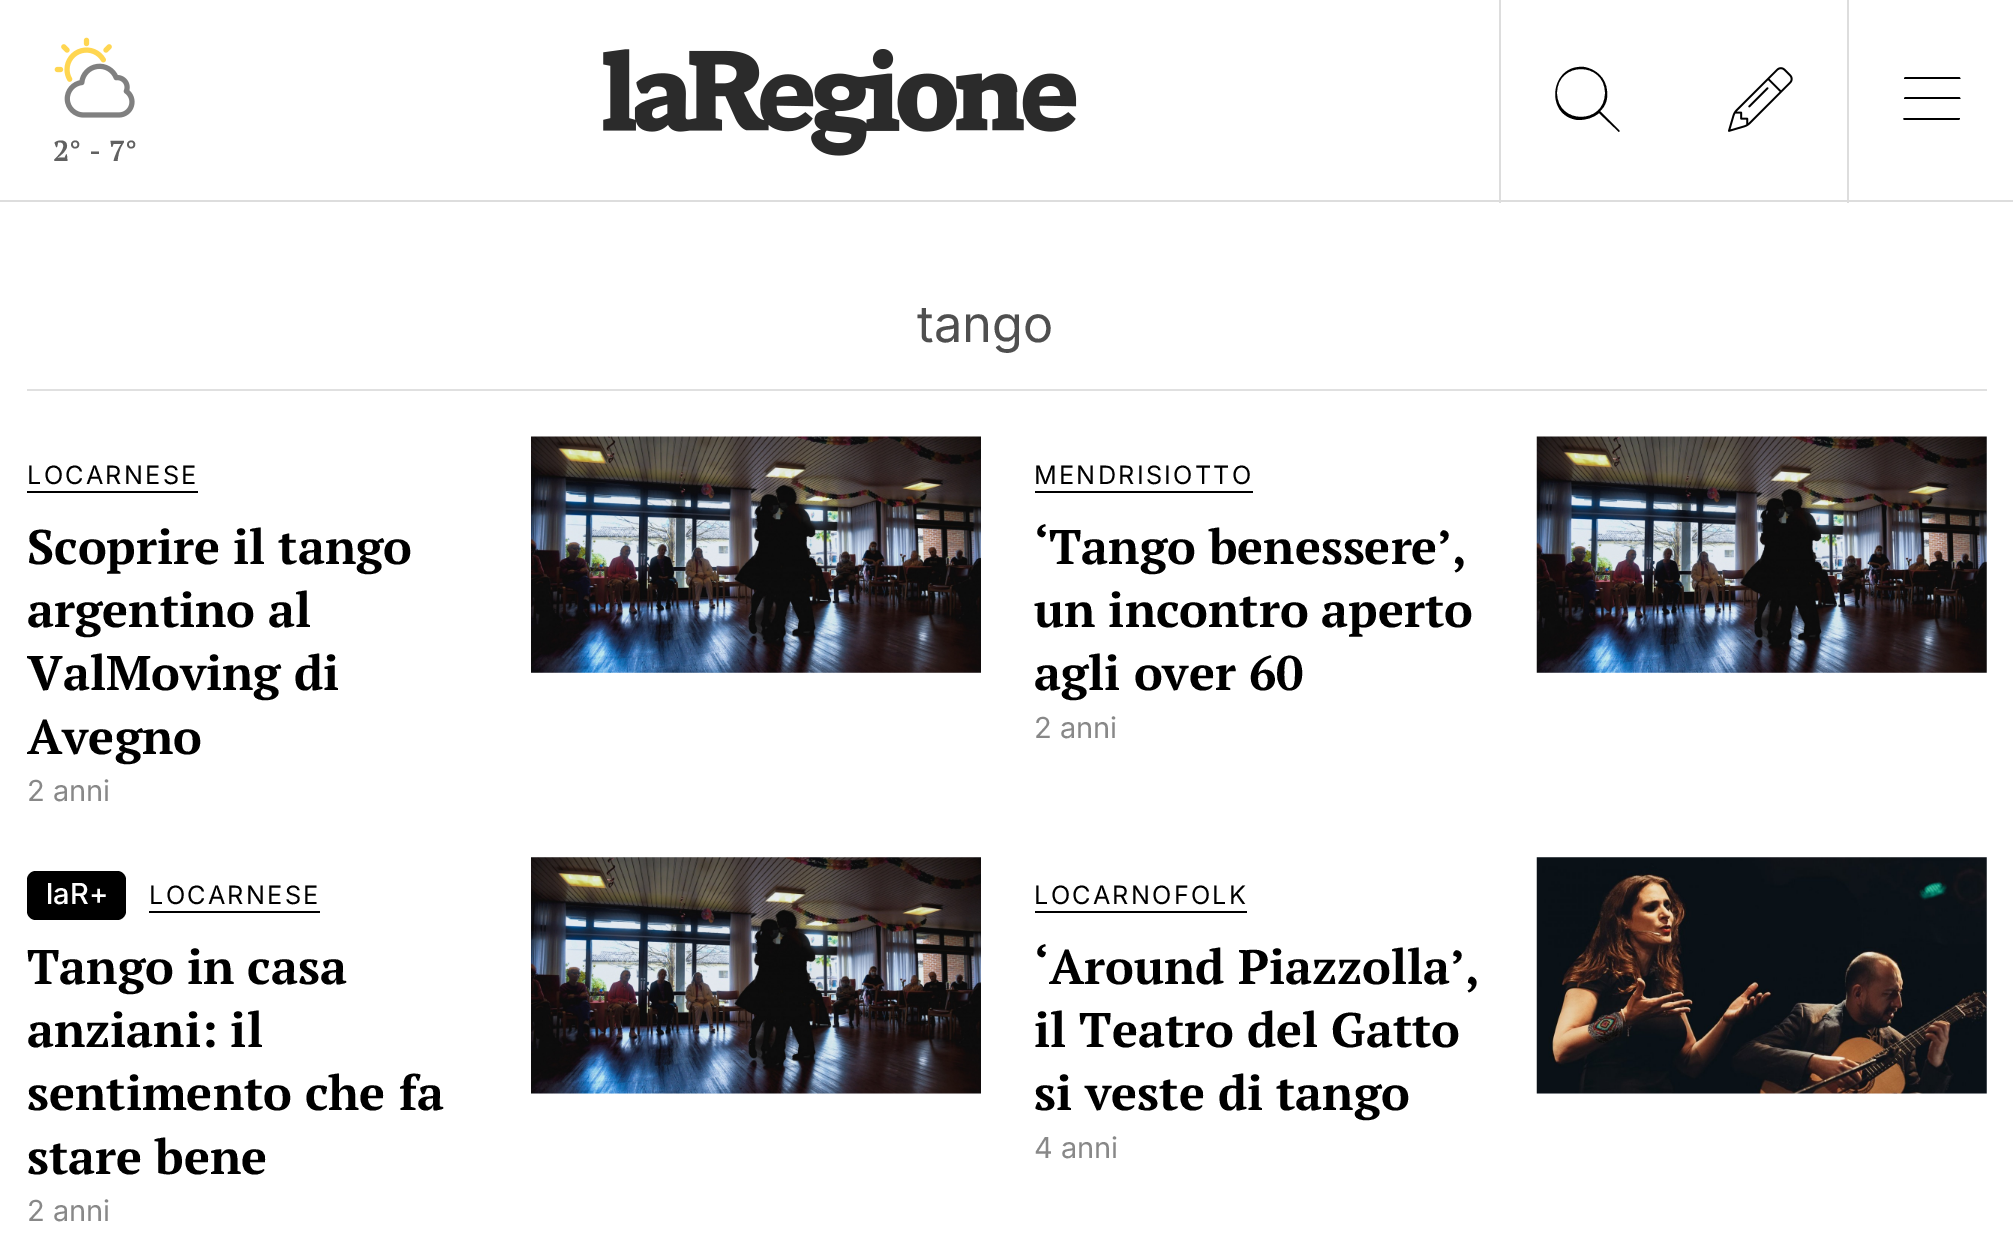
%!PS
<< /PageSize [2013 1240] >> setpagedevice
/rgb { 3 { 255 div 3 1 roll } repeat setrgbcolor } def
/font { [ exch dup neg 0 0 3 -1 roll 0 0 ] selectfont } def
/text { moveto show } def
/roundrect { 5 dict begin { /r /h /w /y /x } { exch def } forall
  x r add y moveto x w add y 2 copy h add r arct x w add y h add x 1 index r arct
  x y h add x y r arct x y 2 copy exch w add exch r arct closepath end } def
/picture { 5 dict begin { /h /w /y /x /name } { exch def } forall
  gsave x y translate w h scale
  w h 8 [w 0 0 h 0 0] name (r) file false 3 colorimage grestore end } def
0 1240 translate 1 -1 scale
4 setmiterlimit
255 255 255 rgb
0 0 2013 1240 rectfill
221 221 221 rgb
0 200 2013 2 rectfill
(img_01.rgb) 54 37 81 81 picture
(img_02.rgb) 603 49 474 107 picture
1499 0 2 203 rectfill
0 0 0 rgb
1605 93 moveto 0 -32 -48 -32 -48 0 rcurveto 0 32 48 32 48 0 rcurveto closepath 1599 113 moveto -6 5 -13 7 -21 7 rcurveto -34 -4 -28 -56 6 -53 rcurveto 12 2 22 11 23 24 rcurveto 1 7 -1 15 -7 20 rcurveto 19 19 rlineto 1 1 0 2 0 2 rcurveto closepath fill
(img_03.rgb) 1728 67 65 65 picture
221 221 221 rgb
1847 0 2 203 rectfill
0 0 0 rgb
1904 78 moveto 1 -1 rlineto 54 0 rlineto 1 0 2 2 1 2 rcurveto -56 0 rlineto closepath 1904 98 moveto 1 -1 rlineto 54 0 rlineto 1 0 2 2 1 2 rcurveto -56 0 rlineto closepath 1960 119 moveto -1 1 rlineto -54 0 rlineto -2 0 -2 -2 -1 -2 rcurveto 56 0 rlineto closepath fill
224 224 224 rgb
27 389 1960 2 rectfill
0 0 0 rgb
27 491 171 2 rectfill
(img_04.rgb) 531 436 450 237 picture
1035 491 218 2 rectfill
245 247 250 rgb
1537 437 450 236 rectfill
(img_05.rgb) 1536 436 451 237 picture
0 0 0 rgb
27 871 99 49 9 roundrect fill
149 911 171 2 rectfill
245 247 250 rgb
531 857 450 237 rectfill
(img_06.rgb) 531 857 450 237 picture
0 0 0 rgb
1035 911 212 2 rectfill
245 247 250 rgb
1537 857 450 237 rectfill
(img_07.rgb) 1536 857 451 237 picture
/PTSerif-Bold 29 font
97 97 97 rgb
(2° - 7°) 53 161 text
/Inter-Regular 50.5 font
79 79 79 rgb
(tango) 917 342 text
/Inter-Regular 25.25 font
0 0 0 rgb
27 484 moveto 2.25 0 (LOCARNESE) ashow
/PTSerif-Bold 48.5 font
(Scoprire il tango) 27 564 text
(argentino al) 27 627 text
(ValMoving di) 27 690 text
(Avegno) 27 754 text
/Inter-Regular 29 font
136 136 136 rgb
(2 anni) 27 801 text
/Inter-Regular 25.25 font
0 0 0 rgb
1034 484 moveto 2.25 0 (MENDRISIOTTO) ashow
/PTSerif-Bold 48.5 font
(‘Tango benessere’,) 1034 564 text
(un incontro aperto) 1034 627 text
(agli over 60) 1034 690 text
/Inter-Regular 29 font
136 136 136 rgb
(2 anni) 1034 738 text
/Inter-Medium 29 font
255 255 255 rgb
(laR+) 46 904 text
/Inter-Regular 25.25 font
0 0 0 rgb
149 904 moveto 2.25 0 (LOCARNESE) ashow
/PTSerif-Bold 48.5 font
(Tango in casa) 27 984 text
(anziani: il) 27 1047 text
(sentimento che fa) 27 1110 text
(stare bene) 27 1174 text
/Inter-Regular 29 font
136 136 136 rgb
(2 anni) 27 1221 text
/Inter-Regular 25.25 font
0 0 0 rgb
1034 904 moveto 2.25 0 (LOCARNOFOLK) ashow
/PTSerif-Bold 48.5 font
(‘Around Piazzolla’,) 1034 984 text
(il Teatro del Gatto) 1034 1047 text
(si veste di tango) 1034 1110 text
/Inter-Regular 29 font
136 136 136 rgb
(4 anni) 1034 1158 text
showpage
